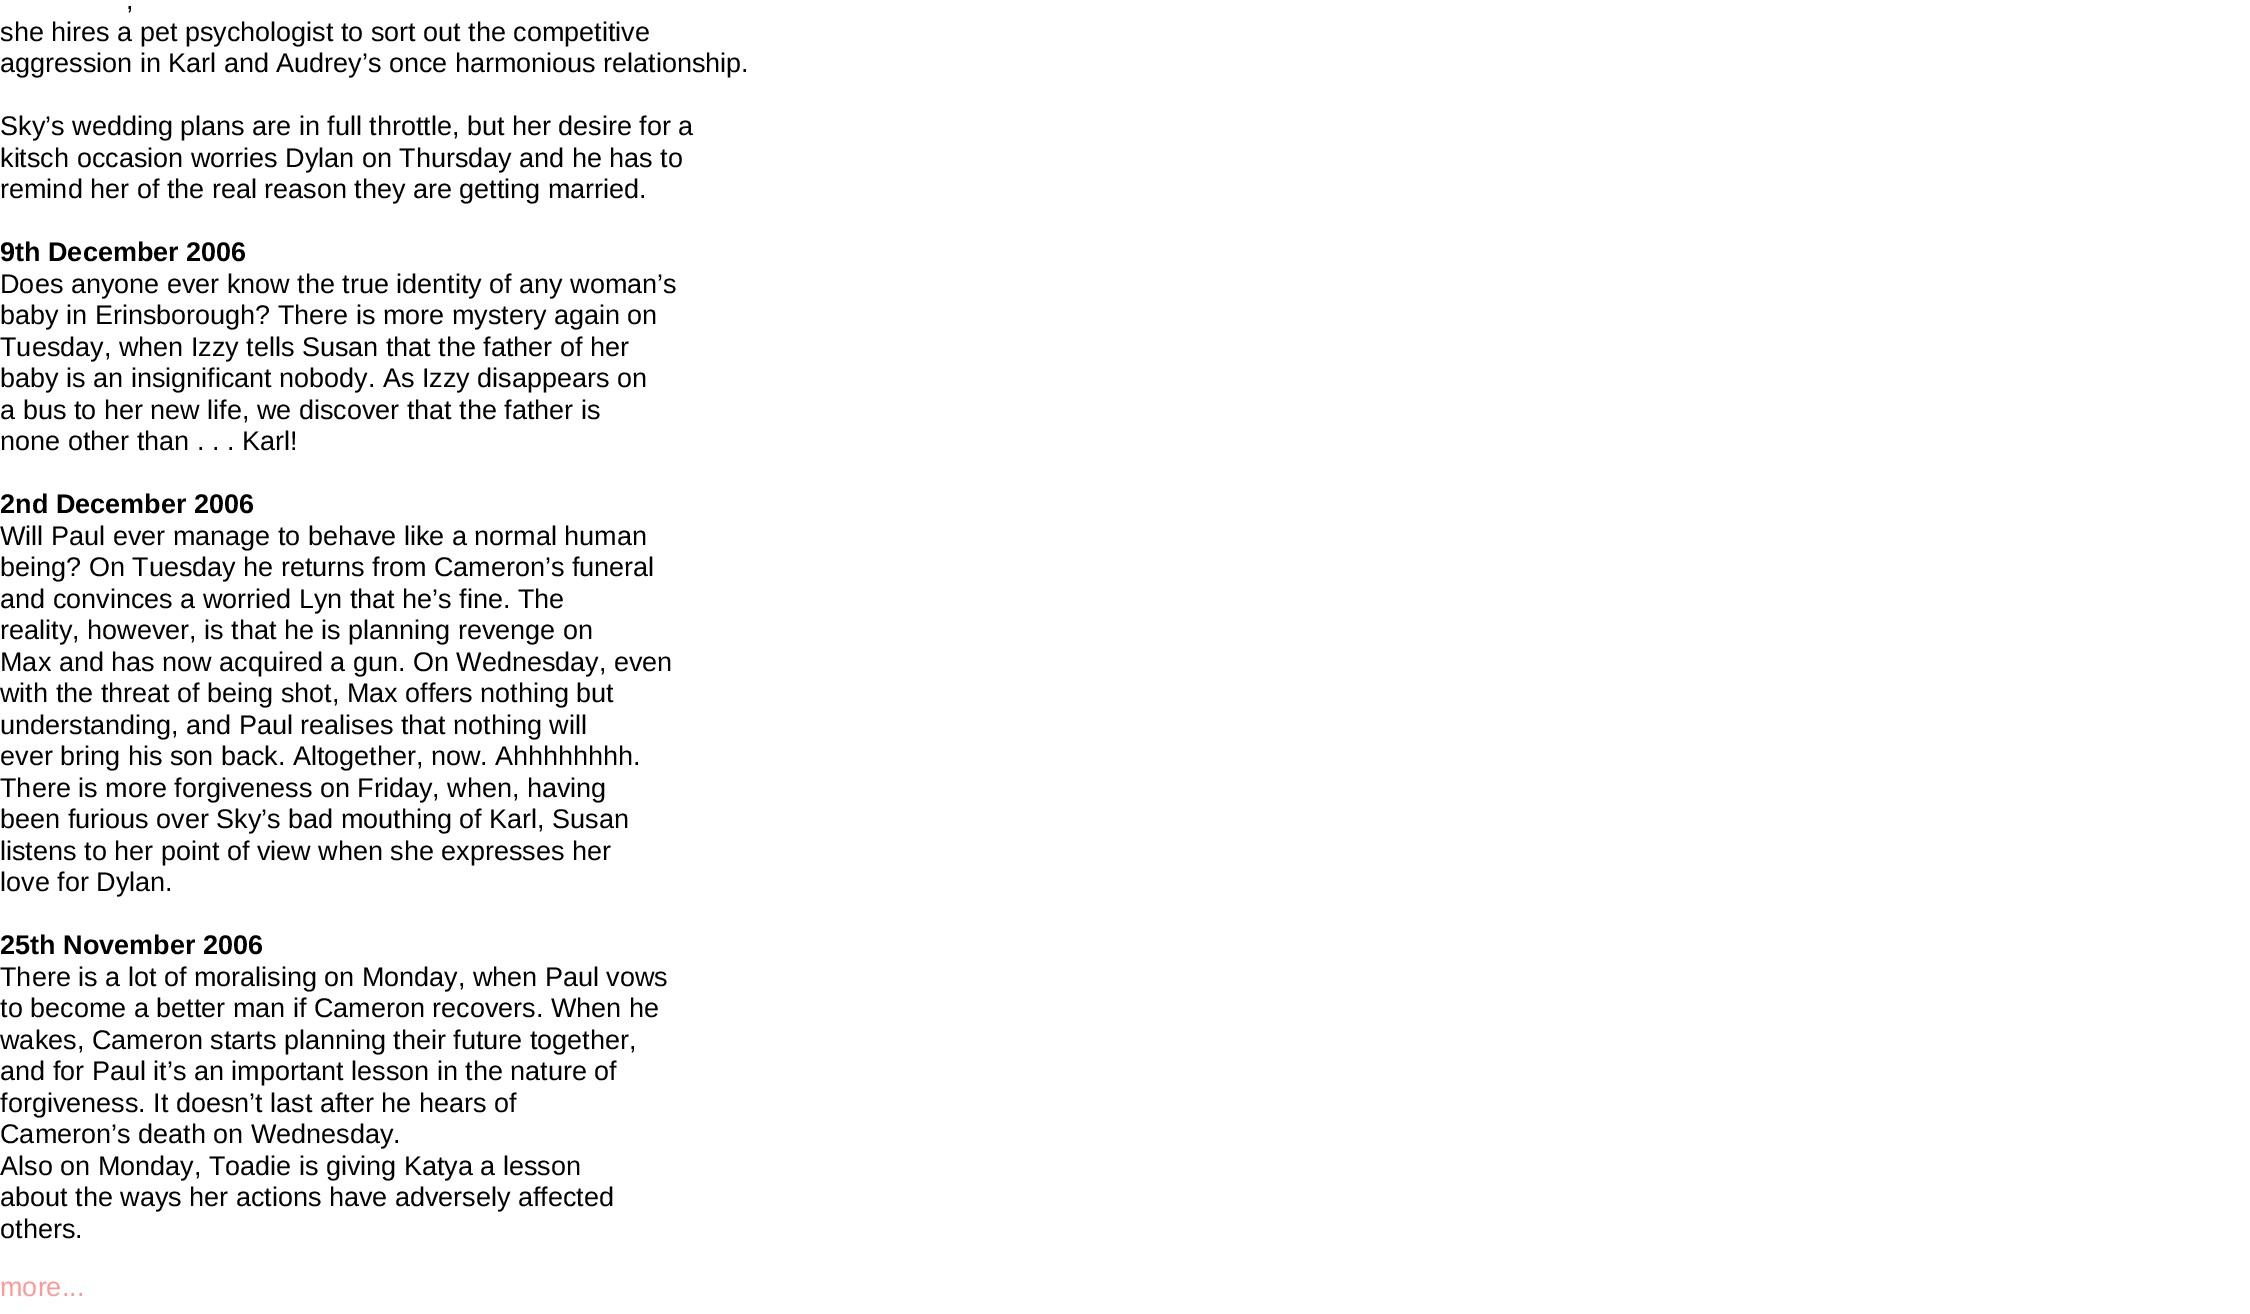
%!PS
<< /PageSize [2250 1314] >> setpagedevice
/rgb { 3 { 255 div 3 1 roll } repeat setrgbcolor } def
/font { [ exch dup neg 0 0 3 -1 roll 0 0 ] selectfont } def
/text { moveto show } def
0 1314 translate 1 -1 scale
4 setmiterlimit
255 255 255 rgb
0 0 2250 1314 rectfill
/LiberationSans-Regular 27 font
0 0 0 rgb
(,) 126 9 text
(she hires a pet psychologist to sort out the competitive) 0 41 text
(aggression in Karl and Audrey’s once harmonious relationship.) 0 72 text
(Sky’s wedding plans are in full throttle, but her desire for a) 0 135 text
(kitsch occasion worries Dylan on Thursday and he has to) 0 167 text
(remind her of the real reason they are getting married.) 0 198 text
/LiberationSans-Bold 27 font
(9th December 2006) 0 261 text
/LiberationSans-Regular 27 font
(Does anyone ever know the true identity of any woman’s) 0 293 text
(baby in Erinsborough? There is more mystery again on) 0 324 text
(Tuesday, when Izzy tells Susan that the father of her) 0 356 text
(baby is an insignificant nobody. As Izzy disappears on) 0 387 text
(a bus to her new life, we discover that the father is) 0 419 text
(none other than . . . Karl!) 0 450 text
/LiberationSans-Bold 27 font
(2nd December 2006) 0 513 text
/LiberationSans-Regular 27 font
(Will Paul ever manage to behave like a normal human) 0 545 text
(being? On Tuesday he returns from Cameron’s funeral) 0 576 text
(and convinces a worried Lyn that he’s fine. The) 0 608 text
(reality, however, is that he is planning revenge on) 0 639 text
(Max and has now acquired a gun. On Wednesday, even) 0 671 text
(with the threat of being shot, Max offers nothing but) 0 702 text
(understanding, and Paul realises that nothing will) 0 734 text
(ever bring his son back. Altogether, now. Ahhhhhhhh.) 0 765 text
(There is more forgiveness on Friday, when, having) 0 797 text
(been furious over Sky’s bad mouthing of Karl, Susan) 0 828 text
(listens to her point of view when she expresses her) 0 860 text
(love for Dylan.) 0 891 text
/LiberationSans-Bold 27 font
(25th November 2006) 0 954 text
/LiberationSans-Regular 27 font
(There is a lot of moralising on Monday, when Paul vows) 0 986 text
(to become a better man if Cameron recovers. When he) 0 1017 text
(wakes, Cameron starts planning their future together,) 0 1049 text
(and for Paul it’s an important lesson in the nature of) 0 1080 text
(forgiveness. It doesn’t last after he hears of) 0 1112 text
(Cameron’s death on Wednesday.) 0 1143 text
(Also on Monday, Toadie is giving Katya a lesson) 0 1175 text
(about the ways her actions have adversely affected) 0 1206 text
(others.) 0 1238 text
255 153 153 rgb
(more...) 0 1296 text
showpage
